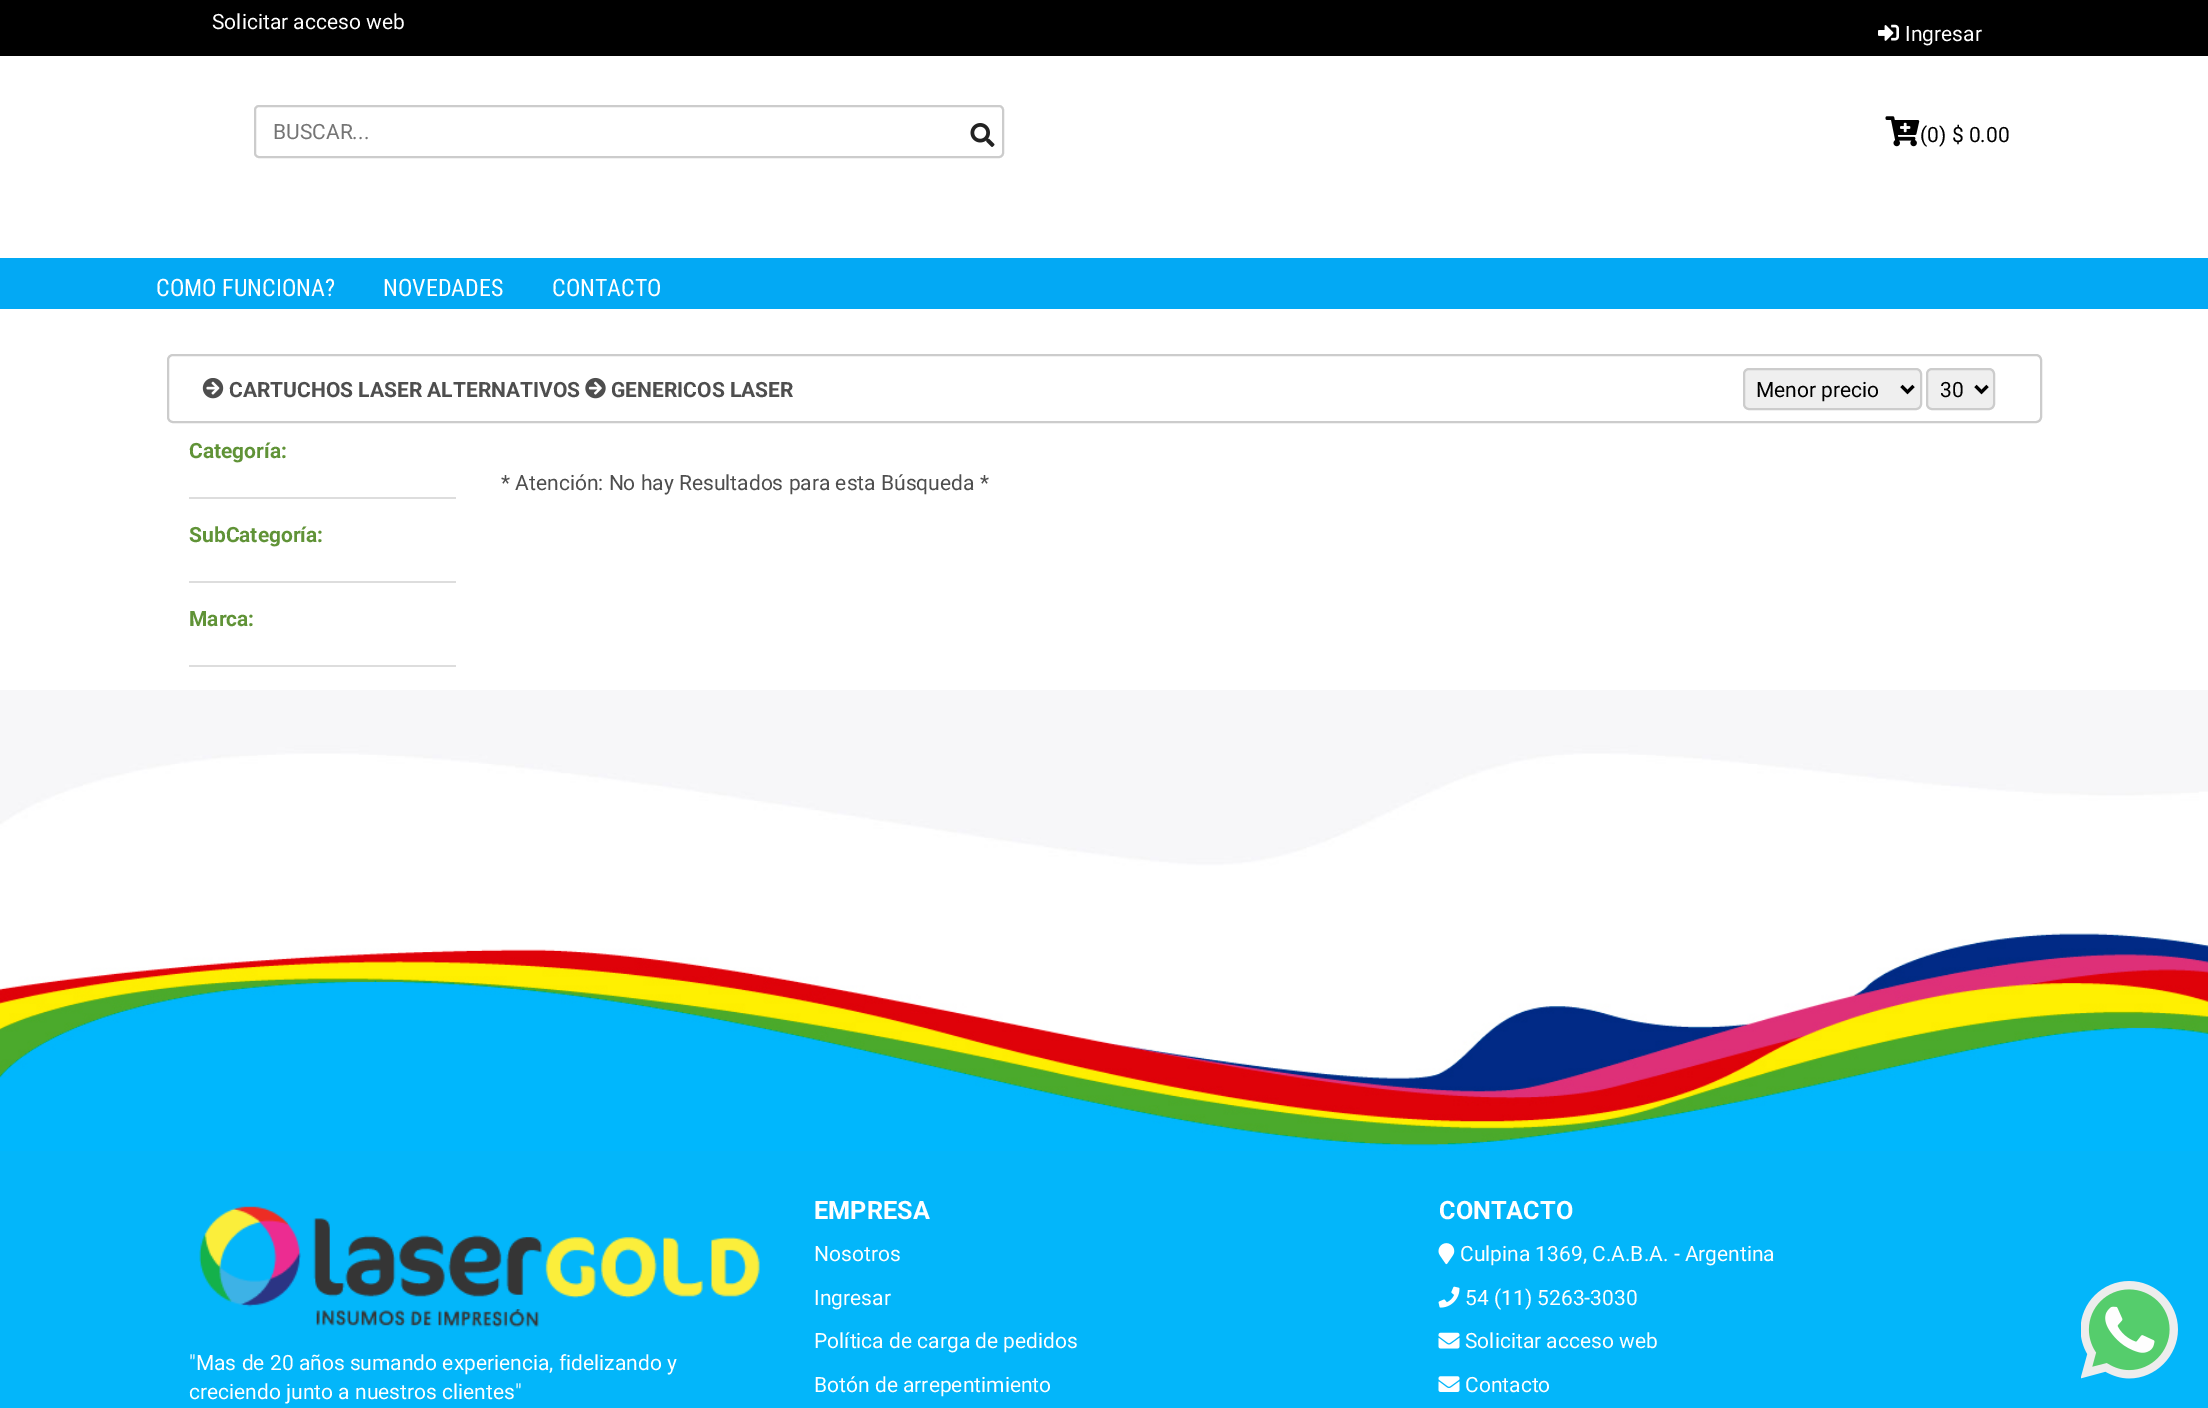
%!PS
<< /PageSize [2208 1408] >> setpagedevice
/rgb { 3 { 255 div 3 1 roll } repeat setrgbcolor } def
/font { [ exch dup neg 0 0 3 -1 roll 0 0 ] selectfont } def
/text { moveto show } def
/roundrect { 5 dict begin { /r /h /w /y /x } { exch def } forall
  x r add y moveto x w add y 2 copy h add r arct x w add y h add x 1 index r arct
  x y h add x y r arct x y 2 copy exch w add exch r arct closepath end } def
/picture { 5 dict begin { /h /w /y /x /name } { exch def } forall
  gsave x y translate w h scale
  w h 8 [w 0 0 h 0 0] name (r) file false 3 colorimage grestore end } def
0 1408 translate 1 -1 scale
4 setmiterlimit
255 255 255 rgb
0 0 2208 1408 rectfill
0 0 0 rgb
0 0 2208 56 rectfill
(img_01.rgb) 1878 24 21 17 picture
204 204 204 rgb
2 setlinewidth
255 106 748 51 4 roundrect stroke
(img_02.rgb) 970 123 25 24 picture
(img_03.rgb) 1885 116 35 31 picture
3 169 244 rgb
0 258 2208 51 rectfill
204 204 204 rgb
168 355 1873 67 5 roundrect stroke
(img_04.rgb) 202 378 22 21 picture
(img_05.rgb) 585 377 21 22 picture
239 239 239 rgb
1744 369 177 40 5 roundrect gsave fill grestore
204 204 204 rgb
stroke
0 0 0 rgb
3 setlinewidth
1901.5 386 moveto 6 6 rlineto 6 -6 rlineto stroke
239 239 239 rgb
1927 369 67 40 5 roundrect gsave fill grestore
204 204 204 rgb
2 setlinewidth
stroke
0 0 0 rgb
3 setlinewidth
1975.5 386 moveto 6 6 rlineto 6 -6 rlineto stroke
221 221 221 rgb
189 497 267 2 rectfill
189 581 267 2 rectfill
189 665 267 2 rectfill
3 182 250 rgb
0 1151 2208 257 rectfill
(img_06.rgb) 0 690 2208 231 picture
(img_07.rgb) 0 921 2208 230 picture
(img_08.rgb) 199 1206 561 121 picture
(img_09.rgb) 1438 1243 17 22 picture
(img_10.rgb) 1438 1286 22 22 picture
(img_11.rgb) 1438 1332 22 17 picture
(img_12.rgb) 1438 1376 22 16 picture
(img_13.rgb) 2081 1281 97 98 picture
/Roboto-Regular 21 font
255 255 255 rgb
(Solicitar acceso web) 212 29 text
(Ingresar) 1905 41 text
117 117 117 rgb
(BUSCAR...) 273 139 text
0 0 0 rgb
(\(0\) $ 0.00) 1920 142 text
/RobotoCondensed-Regular 24 font
255 255 255 rgb
(COMO FUNCIONA?) 156 296 text
(NOVEDADES) 383 296 text
(CONTACTO) 552 296 text
/Roboto-Bold 21 font
78 78 78 rgb
(CARTUCHOS LASER ALTERNATIVOS) 229 397 text
(GENERICOS LASER) 611 397 text
/Roboto-Regular 21 font
0 0 0 rgb
(Menor precio) 1756 397 text
(30) 1940 397 text
/Roboto-Bold 21 font
96 147 55 rgb
(Categoría:) 189 458 text
(SubCategoría:) 189 542 text
(Marca:) 189 626 text
/Roboto-Regular 21 font
78 78 78 rgb
(* Atención: No hay Resultados para esta Búsqueda *) 501 490 text
255 255 255 rgb
("Mas de 20 años sumando experiencia, fidelizando y) 189 1370 text
(creciendo junto a nuestros clientes") 189 1399 text
/Roboto-Bold 25.25 font
(EMPRESA) 814 1219 text
/Roboto-Regular 21 font
(Nosotros) 814 1261 text
(Ingresar) 814 1305 text
(Política de carga de pedidos) 814 1348 text
(Botón de arrepentimiento) 814 1392 text
/Roboto-Bold 25.25 font
(CONTACTO) 1439 1219 text
/Roboto-Regular 21 font
(Culpina 1369, C.A.B.A. - Argentina) 1460 1261 text
(54 \(11\) 5263-3030) 1465 1305 text
(Solicitar acceso web) 1465 1348 text
(Contacto) 1465 1392 text
showpage
